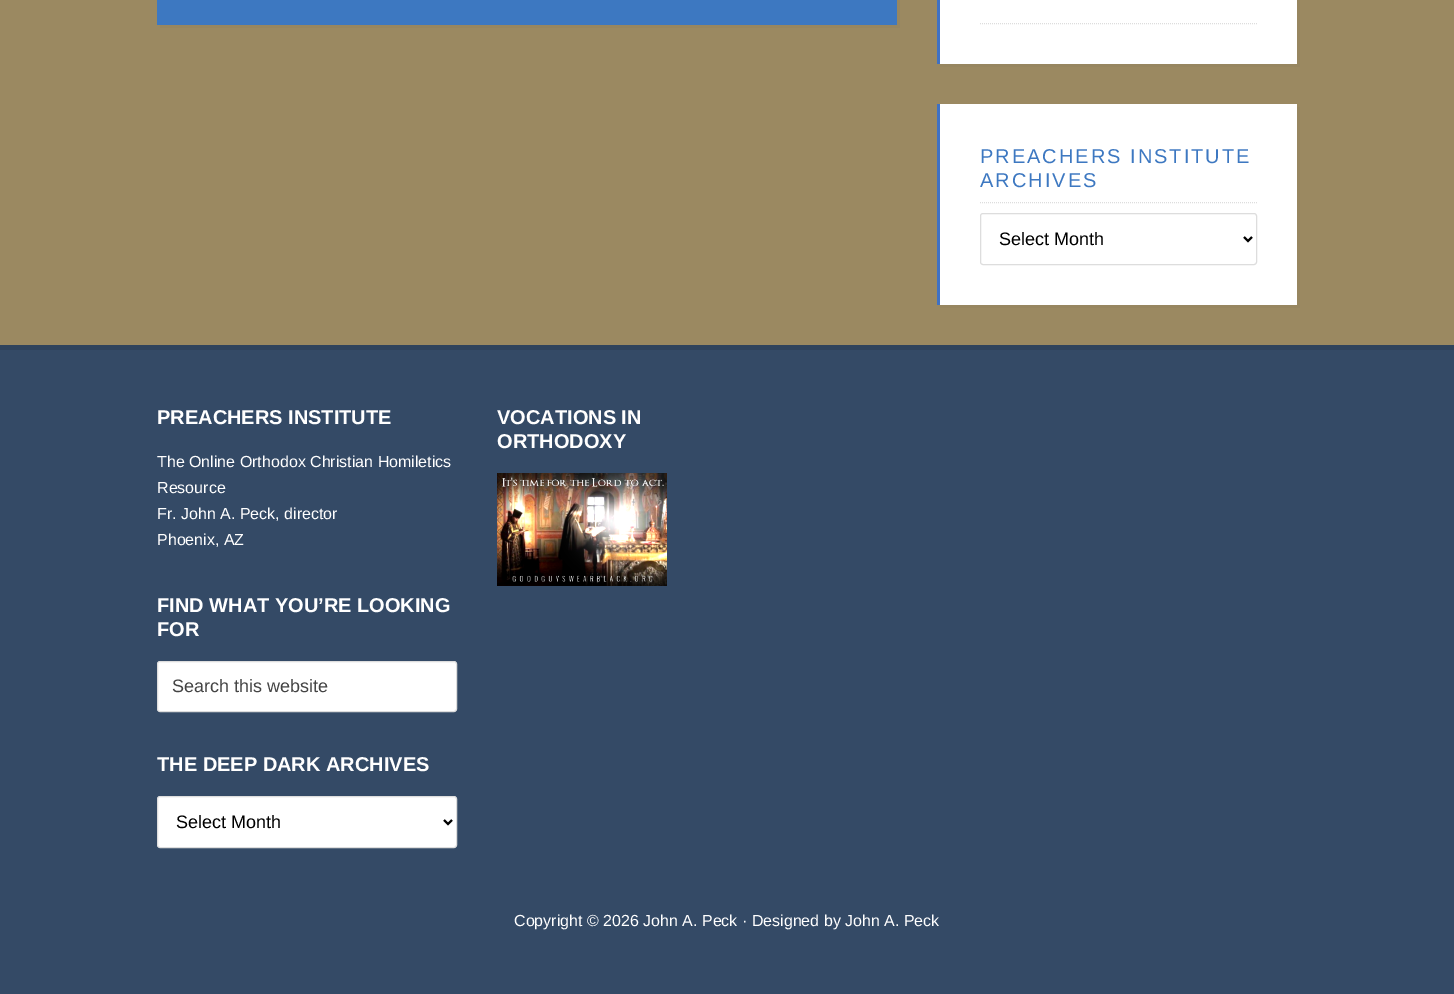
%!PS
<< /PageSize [1454 994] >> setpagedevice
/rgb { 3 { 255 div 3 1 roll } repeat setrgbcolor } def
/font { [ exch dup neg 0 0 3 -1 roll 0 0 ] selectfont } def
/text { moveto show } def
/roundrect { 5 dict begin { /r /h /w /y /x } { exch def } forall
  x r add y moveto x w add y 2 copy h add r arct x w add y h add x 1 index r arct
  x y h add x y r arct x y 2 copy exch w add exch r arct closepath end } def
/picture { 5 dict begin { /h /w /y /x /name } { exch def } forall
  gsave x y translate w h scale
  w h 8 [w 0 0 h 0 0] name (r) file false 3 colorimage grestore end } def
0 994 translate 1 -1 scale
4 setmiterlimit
155 137 97 rgb
0 0 1454 994 rectfill
151 134 96 rgb
160 25 moveto 0 3 rlineto 740 0 rlineto 0 -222 rlineto -3 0 rlineto 0 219 rlineto closepath fill
61 120 193 rgb
157 0 740 25 rectfill
151 134 96 rgb
940 64 moveto 0 3 rlineto 360 0 rlineto 0 -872 rlineto -3 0 rlineto 0 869 rlineto closepath fill
255 255 255 rgb
940 0 357 64 rectfill
63 113 195 rgb
937 0 3 64 rectfill
221 221 221 rgb
[1 1] 0 setdash
980 23.5 moveto 277 0 rlineto stroke
151 134 96 rgb
940 305 moveto 0 3 rlineto 360 0 rlineto 0 -201 rlineto -3 0 rlineto 0 198 rlineto closepath fill
255 255 255 rgb
940 104 357 201 rectfill
63 113 195 rgb
937 104 3 201 rectfill
221 221 221 rgb
980 202.5 moveto 277 0 rlineto stroke
[] 0 setdash
980.5 213.5 276 51 2.5 roundrect stroke
0 0 0 rgb
2 setlinewidth
1244 237 moveto 4 4 rlineto 4 -4 rlineto stroke
52 74 102 rgb
0 350 1454 644 rectfill
47 67 92 rgb
0 345 1454 5 rectfill
255 255 255 rgb
157.5 661.5 299 50 2.5 roundrect gsave fill grestore
221 221 221 rgb
1 setlinewidth
stroke
255 255 255 rgb
157.5 796.5 299 51 2.5 roundrect gsave fill grestore
221 221 221 rgb
stroke
0 0 0 rgb
2 setlinewidth
444 820 moveto 4 4 rlineto 4 -4 rlineto stroke
(img_01.rgb) 497 473 170 113 picture
/LiberationSans-Regular 20 font
61 120 193 rgb
980 163 moveto 2 0 (PREACHERS INSTITUTE) ashow
980 187 moveto 2 0 (ARCHIVES) ashow
/LiberationSans-Regular 18 font
0 0 0 rgb
(Select Month) 999 245 text
/LiberationSans-Bold 20 font
255 255 255 rgb
(PREACHERS INSTITUTE) 157 424 text
/LiberationSans-Regular 16 font
(The Online Orthodox Christian Homiletics) 157 467 text
(Resource) 157 493 text
(Fr. John A. Peck, director) 157 519 text
(Phoenix, AZ) 157 545 text
/LiberationSans-Bold 20 font
(FIND WHAT YOU’RE LOOKING) 157 612 text
(FOR) 157 636 text
/LiberationSans-Regular 18 font
68 68 68 rgb
(Search this website) 172 692 text
/LiberationSans-Bold 20 font
255 255 255 rgb
(THE DEEP DARK ARCHIVES) 157 771 text
/LiberationSans-Regular 18 font
0 0 0 rgb
(Select Month) 176 828 text
/LiberationSans-Bold 20 font
255 255 255 rgb
(VOCATIONS IN) 497 424 text
(ORTHODOXY) 497 448 text
/LiberationSans-Regular 16 font
(Copyright © 2026 John A. Peck · Designed by John A. Peck) 514 926 text
showpage
